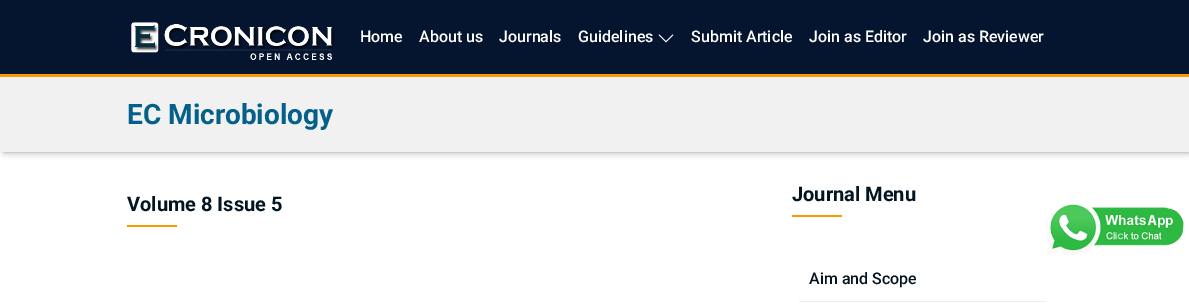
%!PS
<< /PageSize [1189 307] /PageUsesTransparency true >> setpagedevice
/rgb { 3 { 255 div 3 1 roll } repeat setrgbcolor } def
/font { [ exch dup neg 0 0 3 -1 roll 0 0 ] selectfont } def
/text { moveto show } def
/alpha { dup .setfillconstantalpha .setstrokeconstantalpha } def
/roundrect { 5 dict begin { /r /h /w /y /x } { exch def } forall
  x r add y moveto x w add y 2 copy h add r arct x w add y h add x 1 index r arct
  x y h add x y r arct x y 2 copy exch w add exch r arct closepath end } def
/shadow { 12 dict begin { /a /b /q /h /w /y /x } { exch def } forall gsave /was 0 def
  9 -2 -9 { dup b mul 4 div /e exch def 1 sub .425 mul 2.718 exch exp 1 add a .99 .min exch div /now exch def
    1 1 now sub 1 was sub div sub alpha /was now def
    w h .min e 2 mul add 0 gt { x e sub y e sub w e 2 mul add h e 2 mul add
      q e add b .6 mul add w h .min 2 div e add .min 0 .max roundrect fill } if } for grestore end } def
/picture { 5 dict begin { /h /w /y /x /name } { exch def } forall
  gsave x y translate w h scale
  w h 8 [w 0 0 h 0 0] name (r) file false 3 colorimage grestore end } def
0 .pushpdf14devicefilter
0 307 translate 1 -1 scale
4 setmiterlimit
255 255 255 rgb
0 0 1189 307 rectfill
5 21 47 rgb
0 0 1189 74 rectfill
255 153 0 rgb
0 74 1189 3 rectfill
(img_01.rgb) 131 22 203 38 picture
(img_02.rgb) 658 34 16 9 picture
148 152 153 rgb
4 81 1185 71 0 3.5 1 shadow
241 241 241 rgb
0 77 1189 75 rectfill
255 153 0 rgb
127 225 50 2 rectfill
792 215 50 2 rectfill
238 238 238 rgb
799 301 247 1 rectfill
(img_03.rgb) 1046 200 138 55 picture
/Roboto-Medium 16 font
255 255 255 rgb
(Home) 360 42 text
(About us) 419 42 text
(Journals) 499 42 text
(Guidelines) 578 42 text
(Submit Article) 691 42 text
(Join as Editor) 809 42 text
(Join as Reviewer) 923 42 text
/Roboto-Bold 28 font
4 96 137 rgb
(EC Microbiology) 127 124 text
/Roboto-Bold 20 font
3 21 33 rgb
(Volume 8 Issue 5) 127 211 text
(Journal Menu) 792 201 text
/Roboto-Medium 16 font
(Aim and Scope) 809 284 text
.poppdf14devicefilter showpage
